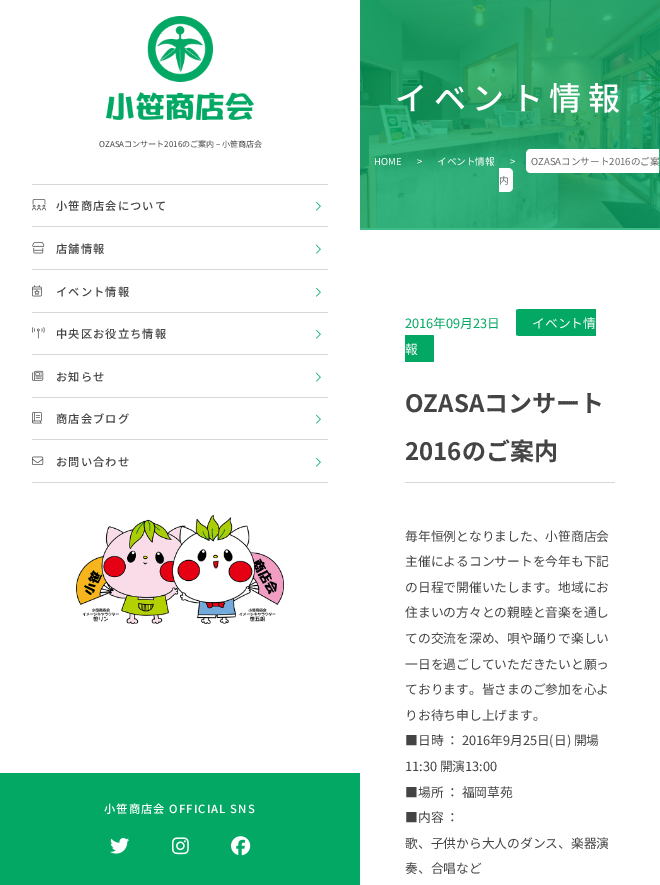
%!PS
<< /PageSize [660 885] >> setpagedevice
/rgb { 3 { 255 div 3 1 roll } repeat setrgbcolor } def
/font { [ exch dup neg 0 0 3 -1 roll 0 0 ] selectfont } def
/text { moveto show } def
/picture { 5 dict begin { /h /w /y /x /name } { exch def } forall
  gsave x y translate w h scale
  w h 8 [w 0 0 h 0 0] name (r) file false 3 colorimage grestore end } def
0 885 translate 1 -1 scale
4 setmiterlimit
255 255 255 rgb
0 0 660 885 rectfill
(img_01.rgb) 106 16 148 104 picture
214 214 214 rgb
32 184 296 1 rectfill
32 226 296 1 rectfill
(img_02.rgb) 32 199 14 12 picture
(img_03.rgb) 316 201 5 10 picture
32 269 296 1 rectfill
(img_04.rgb) 32 242 13 12 picture
(img_03.rgb) 316 244 5 10 picture
32 312 296 1 rectfill
(img_05.rgb) 32 285 10 12 picture
(img_03.rgb) 316 287 5 10 picture
32 354 296 1 rectfill
(img_06.rgb) 32 327 13 12 picture
(img_03.rgb) 316 329 5 10 picture
32 397 296 1 rectfill
(img_07.rgb) 32 370 12 11 picture
(img_03.rgb) 316 372 5 10 picture
32 439 296 1 rectfill
(img_08.rgb) 32 412 10 12 picture
(img_03.rgb) 316 414 5 10 picture
32 482 296 1 rectfill
(img_09.rgb) 32 456 12 9 picture
(img_03.rgb) 316 457 5 10 picture
(img_10.rgb) 76 515 208 109 picture
3 168 100 rgb
0 773 360 112 rectfill
(img_11.rgb) 110 838 19 16 picture
(img_12.rgb) 172 837 17 18 picture
(img_13.rgb) 231 836 20 20 picture
(img_14.rgb) 360 0 300 228 picture
255 255 255 rgb
531 149 moveto 128 0 rlineto 0 24 rlineto -128 0 rlineto -3 0 -5 -2 -5 -5 rcurveto 0 -14 rlineto 0 -3 2 -5 5 -5 rcurveto closepath fill
499 168 moveto 9 0 rlineto 3 0 5 2 5 5 rcurveto 0 14 rlineto 0 3 -2 5 -5 5 rcurveto -9 0 rlineto closepath fill
61 188 136 rgb
360 228 300 2 rectfill
3 168 100 rgb
520 309 moveto 76 0 rlineto 0 27 rlineto -76 0 rlineto -2 0 -4 -1 -4 -1 rcurveto 0 -25 rlineto 0 0 2 -1 4 -1 rcurveto closepath fill
405 335 moveto 27.5 0 rlineto 1 0 1.5 0.5 1.5 1.5 rcurveto 0 24 rlineto 0 1 -0.5 1.5 -1.5 1.5 rcurveto -27.5 0 rlineto closepath fill
214 214 214 rgb
405 482 210 1 rectfill
/NotoSansJP-Regular 8 font
68 68 68 rgb
(OZASAコンサート2016のご案内 – 小笹商店会) 99 147 text
/NotoSansJP-Medium 11.25 font
56 210 moveto 1.1 0 (小笹商店会について) ashow
56 253 moveto 1.1 0 (店舗情報) ashow
56 296 moveto 1.1 0 (イベント情報) ashow
56 338 moveto 1.1 0 (中央区お役立ち情報) ashow
56 381 moveto 1.1 0 (お知らせ) ashow
56 423 moveto 1.1 0 (商店会ブログ) ashow
56 466 moveto 1.1 0 (お問い合わせ) ashow
255 255 255 rgb
104 813 moveto 1.1 0 (小笹商店会 OFFICIAL SNS) ashow
/NotoSansJP-Medium 32 font
395 110 moveto 6.5 0 (イベント情報) ashow
/NotoSansJP-Regular 9.6 font
(HOME) 374 165 text
(>) 417 165 text
(イベント情報) 437 165 text
(>) 510 165 text
102 102 102 rgb
(OZASAコンサート2016のご案) 531 165 text
(内) 499 184 text
/NotoSansJP-Regular 12.75 font
3 168 100 rgb
(2016年09月23日) 405 328 text
255 255 255 rgb
(イベント情) 532 328 text
(報) 405 354 text
/NotoSansJP-Bold 24 font
68 68 68 rgb
(OZASAコンサート) 405 412 text
(2016のご案内) 405 460 text
/NotoSansJP-Regular 12.75 font
(毎年恒例となりました、小笹商店会) 405 541 text
(主催によるコンサートを今年も下記) 405 566 text
(の日程で開催いたします。地域にお) 405 592 text
(住まいの方々との親睦と音楽を通し) 405 617 text
(ての交流を深め、唄や踊りで楽しい) 405 643 text
(一日を過ごしていただきたいと願っ) 405 669 text
(ております。皆さまのご参加を心よ) 405 694 text
(りお待ち申し上げます。) 405 720 text
(■日時 ： 2016年9月25日\(日\) 開場) 405 745 text
(11:30 開演13:00) 405 771 text
(■場所 ： 福岡草苑) 405 797 text
(■内容 ：) 405 822 text
(歌、子供から大人のダンス、楽器演) 405 848 text
(奏、合唱など) 405 873 text
showpage
